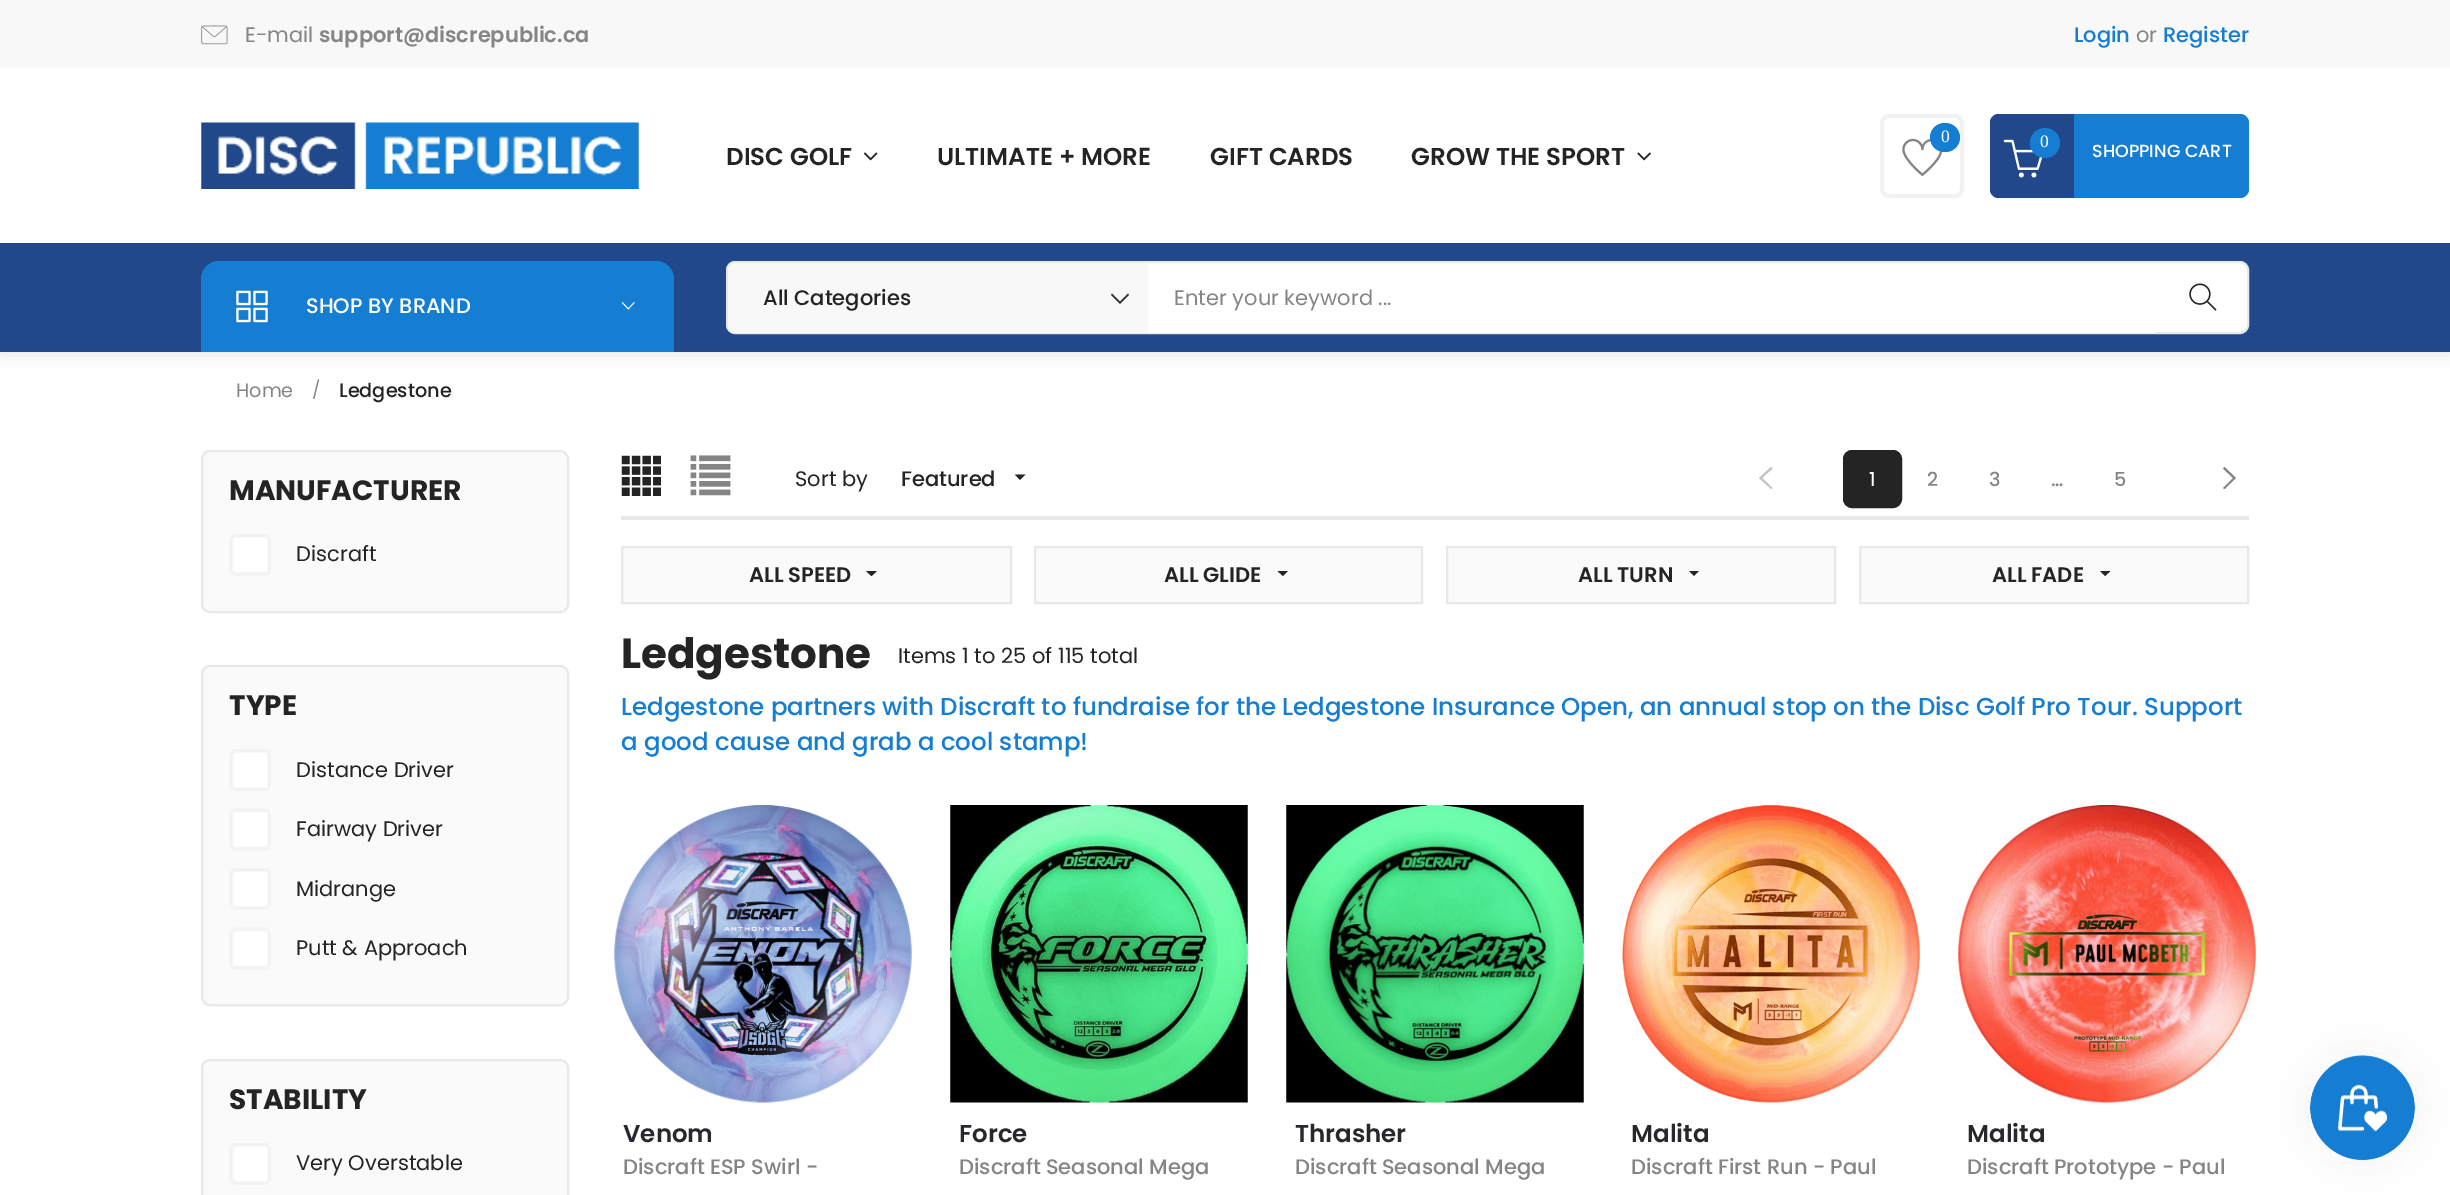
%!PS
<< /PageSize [2450 1195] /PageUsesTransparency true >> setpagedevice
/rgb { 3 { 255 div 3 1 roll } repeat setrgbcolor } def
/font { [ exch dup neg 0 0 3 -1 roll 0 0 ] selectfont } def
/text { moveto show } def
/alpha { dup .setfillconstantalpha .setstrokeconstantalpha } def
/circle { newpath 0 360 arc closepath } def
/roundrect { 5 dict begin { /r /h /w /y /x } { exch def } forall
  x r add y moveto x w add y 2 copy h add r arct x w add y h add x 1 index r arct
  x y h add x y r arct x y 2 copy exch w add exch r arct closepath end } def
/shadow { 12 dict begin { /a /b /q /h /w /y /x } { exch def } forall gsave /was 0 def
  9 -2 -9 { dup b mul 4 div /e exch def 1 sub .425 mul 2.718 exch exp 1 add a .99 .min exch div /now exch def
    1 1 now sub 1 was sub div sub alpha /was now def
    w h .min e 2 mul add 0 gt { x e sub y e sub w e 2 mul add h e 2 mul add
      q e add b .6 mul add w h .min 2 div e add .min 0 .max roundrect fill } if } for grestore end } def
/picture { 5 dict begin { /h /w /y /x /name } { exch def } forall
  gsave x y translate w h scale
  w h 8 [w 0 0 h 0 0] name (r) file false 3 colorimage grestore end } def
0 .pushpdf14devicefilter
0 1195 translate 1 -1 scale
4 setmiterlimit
255 255 255 rgb
0 0 2450 1195 rectfill
0 0 0 rgb
0 4 2450 351 0 7 0.1 shadow
255 255 255 rgb
0 68 2450 175 rectfill
248 248 248 rgb
0 0 2450 68 rectfill
(img_01.rgb) 201 25 27 20 picture
(img_02.rgb) 201 122 438 67 picture
(img_03.rgb) 863 152 15 9 picture
(img_04.rgb) 1637 152 14 9 picture
242 242 242 rgb
4 setlinewidth
1882 116 80 80 7 roundrect stroke
(img_05.rgb) 1902 138 41 39 picture
21 126 210 rgb
1930 123 30 29 14.5 roundrect fill
1990 114 259 84 9 roundrect fill
32 72 138 rgb
1999 114 moveto 75 0 rlineto 0 84 rlineto -75 0 rlineto -5 0 -9 -4 -9 -9 rcurveto 0 -66 rlineto 0 -5 4 -9 9 -9 rcurveto closepath fill
(img_06.rgb) 2003 139 40 39 picture
21 126 210 rgb
2045 143 15 circle fill
32 72 138 rgb
0 243 2450 109 rectfill
21 126 210 rgb
219 261 moveto 437 0 rlineto 10 0 18 8 18 18 rcurveto 0 73 rlineto -473 0 rlineto 0 -73 rlineto 0 -10 8 -18 18 -18 rcurveto closepath fill
(img_07.rgb) 236 290 32 33 picture
(img_08.rgb) 621 302 14 8 picture
255 255 255 rgb
727 262 1521 71 8 roundrect gsave fill grestore
232 232 232 rgb
2 setlinewidth
stroke
248 248 248 rgb
735 263 moveto 413 0 rlineto 0 70 rlineto -413 0 rlineto -4 0 -7 -3 -7 -7 rcurveto 0 -56 rlineto 0 -4 3 -7 7 -7 rcurveto closepath fill
52 52 52 rgb
1120 304 moveto -9 -9 rlineto 1 -1.5 rlineto 8 8 rlineto 8 -8 rlineto 1 1.5 rlineto closepath eofill
255 255 255 rgb
1148 332 1008 1 rectfill
(img_09.rgb) 2189 283 28 28 picture
250 250 250 rgb
202 451 366 161 8 roundrect gsave fill grestore
232 232 232 rgb
stroke
(img_10.rgb) 229 534 42 42 picture
250 250 250 rgb
202 666 366 339 8 roundrect gsave fill grestore
232 232 232 rgb
stroke
(img_11.rgb) 229 749 42 42 picture
(img_12.rgb) 229 808 42 43 picture
(img_11.rgb) 229 868 42 42 picture
(img_12.rgb) 229 927 42 43 picture
250 250 250 rgb
202 1060 366 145 8 roundrect gsave fill grestore
232 232 232 rgb
stroke
(img_10.rgb) 229 1143 42 42 picture
621 516 1628 4 rectfill
(img_13.rgb) 621 455 40 41 picture
(img_14.rgb) 690 455 41 41 picture
36 36 36 rgb
1015 474.5 moveto 5 5.5 rlineto 5.5 -5.5 rlineto closepath fill
194 194 194 rgb
1772.5 468.5 moveto -1.5 -1.5 rlineto -12 11 rlineto 12 11 rlineto 1.5 -1 rlineto -10.5 -10 rlineto closepath fill
36 36 36 rgb
1844 451 57 56 8 roundrect gsave fill grestore
stroke
133 133 133 rgb
2223 468.5 moveto 1.5 -1.5 rlineto 11.5 11 rlineto -11.5 11 rlineto -1.5 -1 rlineto 10 -10 rlineto closepath fill
250 250 250 rgb
622 547 moveto 389 0 rlineto 0 56 rlineto -389 0 rlineto closepath gsave fill grestore
232 232 232 rgb
stroke
36 36 36 rgb
866 571 moveto 5.5 5 rlineto 5.5 -5 rlineto closepath fill
250 250 250 rgb
1035 547 moveto 387 0 rlineto 0 56 rlineto -387 0 rlineto closepath gsave fill grestore
232 232 232 rgb
stroke
36 36 36 rgb
1277.5 571 moveto 5.5 5 rlineto 5 -5 rlineto closepath fill
250 250 250 rgb
1447 547 moveto 388 0 rlineto 0 56 rlineto -388 0 rlineto closepath gsave fill grestore
232 232 232 rgb
stroke
36 36 36 rgb
1689 571 moveto 5 5 rlineto 5 -5 rlineto closepath fill
250 250 250 rgb
1860 547 moveto 388 0 rlineto 0 56 rlineto -388 0 rlineto closepath gsave fill grestore
232 232 232 rgb
stroke
36 36 36 rgb
2100 571 moveto 5 5 rlineto 5.5 -5 rlineto closepath fill
(img_15.rgb) 614 805 298 298 picture
(img_16.rgb) 950 805 298 298 picture
(img_17.rgb) 1286 805 298 298 picture
(img_18.rgb) 1622 805 298 298 picture
(img_19.rgb) 1958 805 298 298 picture
0 0 0 rgb
2310 1055 105 105 52.5 22 0.05 shadow
(img_20.rgb) 2310 1055 105 106 picture
/Poppins-Regular 21 font
133 133 133 rgb
(E-mail) 245 42 text
/Poppins-SemiBold 21 font
(support@discrepublic.ca) 319 42 text
/Poppins-Medium 21 font
21 126 210 rgb
(Login) 2074 42 text
/Poppins-Regular 21 font
133 133 133 rgb
(or) 2136 42 text
/Poppins-Medium 21 font
21 126 210 rgb
(Register) 2163 42 text
/Poppins-SemiBold 24.5 font
36 36 36 rgb
(DISC GOLF) 726 165 text
(ULTIMATE + MORE) 937 165 text
(GIFT CARDS) 1210 165 text
(GROW THE SPORT) 1411 165 text
/LiberationSerif-Regular 17.5 font
255 255 255 rgb
(0) 1941 142 text
(0) 2040 147 text
/Poppins-Medium 17.5 font
(SHOPPING CART) 2092 157 text
/Poppins-Medium 21 font
(SHOP BY BRAND) 306 313 text
36 36 36 rgb
(All Categories) 763 305 text
/Poppins-Regular 21 font
133 133 133 rgb
(Enter your keyword ...) 1174 305 text
/Poppins-Regular 19.25 font
(Home) 236 397 text
/Poppins-Regular 17.5 font
(/) 312 396 text
/Poppins-Medium 19.25 font
36 36 36 rgb
(Ledgestone) 339 397 text
/Poppins-Bold 28 font
(MANUFACTURER) 229 500 text
/Poppins-Regular 21 font
(Discraft) 296 561 text
/Poppins-Bold 28 font
(TYPE) 229 715 text
/Poppins-Regular 21 font
(Distance Driver) 296 777 text
(Fairway Driver) 296 836 text
(Midrange) 296 896 text
(Putt & Approach) 296 955 text
/Poppins-Bold 28 font
(STABILITY) 229 1109 text
/Poppins-Regular 21 font
(Very Overstable) 296 1170 text
(Sort by) 795 486 text
/Poppins-Medium 21 font
(Featured) 901 486 text
/Poppins-Medium 19.25 font
255 255 255 rgb
(1) 1869 486 text
133 133 133 rgb
(2) 1927 486 text
(3) 1989 486 text
(…) 2051 486 text
(5) 2114 486 text
/Poppins-SemiBold 21 font
36 36 36 rgb
(ALL SPEED) 749 582 text
(ALL GLIDE) 1164 582 text
(ALL TURN) 1578 582 text
(ALL FADE) 1992 582 text
/Poppins-Bold 42 font
(Ledgestone) 621 668 text
/Poppins-Regular 21 font
(Items 1 to 25 of 115 total) 898 663 text
/Poppins-Medium 24.5 font
21 126 210 rgb
(Ledgestone partners with Discraft to fundraise for the Ledgestone Insurance Open, an annual stop on the Disc Golf Pro Tour. Support) 621 715 text
(a good cause and grab a cool stamp!) 621 750 text
/Poppins-SemiBold 24.5 font
39 39 47 rgb
(Venom) 623 1142 text
/Poppins-Medium 21 font
133 133 133 rgb
(Discraft ESP Swirl -) 623 1174 text
/Poppins-SemiBold 24.5 font
39 39 47 rgb
(Force) 959 1142 text
/Poppins-Medium 21 font
133 133 133 rgb
(Discraft Seasonal Mega) 959 1174 text
/Poppins-SemiBold 24.5 font
39 39 47 rgb
(Thrasher) 1295 1142 text
/Poppins-Medium 21 font
133 133 133 rgb
(Discraft Seasonal Mega) 1295 1174 text
/Poppins-SemiBold 24.5 font
39 39 47 rgb
(Malita) 1631 1142 text
/Poppins-Medium 21 font
133 133 133 rgb
(Discraft First Run - Paul) 1631 1174 text
/Poppins-SemiBold 24.5 font
39 39 47 rgb
(Malita) 1967 1142 text
/Poppins-Medium 21 font
133 133 133 rgb
(Discraft Prototype - Paul) 1967 1174 text
.poppdf14devicefilter showpage
